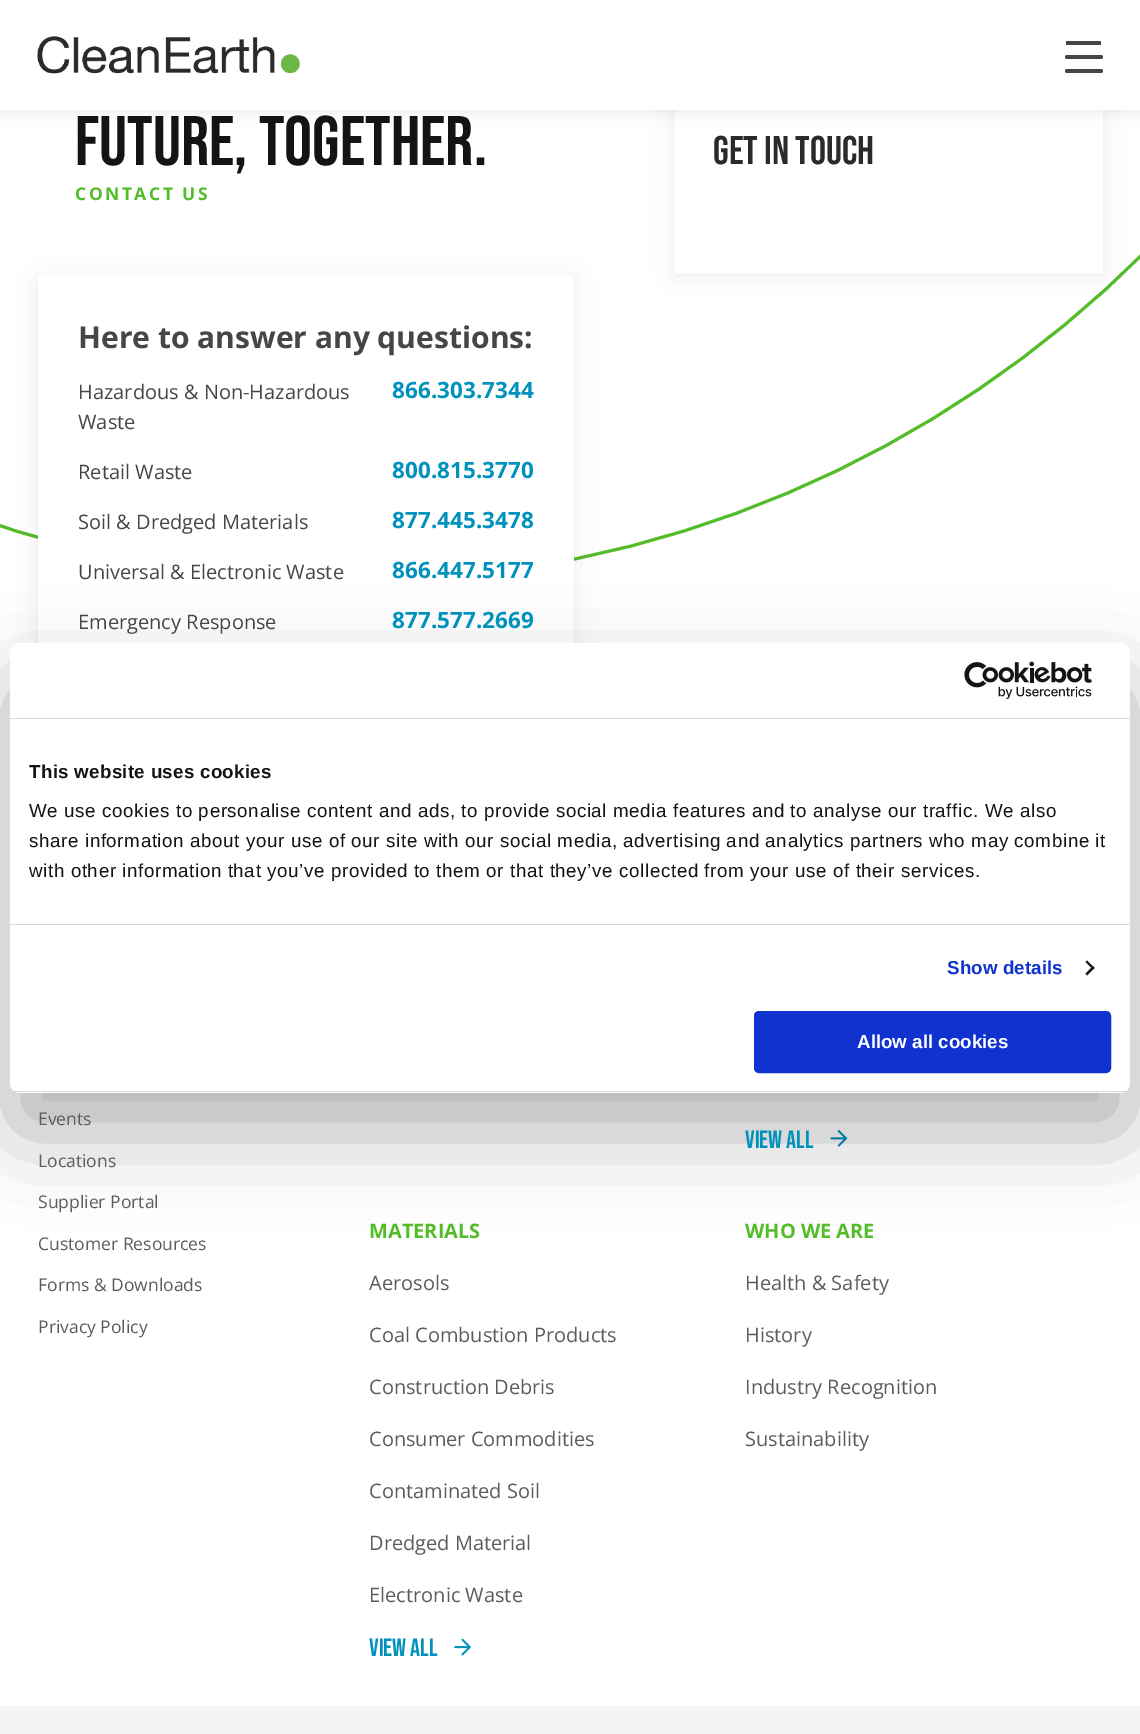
%!PS
<< /PageSize [1140 1734] /PageUsesTransparency true >> setpagedevice
/rgb { 3 { 255 div 3 1 roll } repeat setrgbcolor } def
/font { [ exch dup neg 0 0 3 -1 roll 0 0 ] selectfont } def
/text { moveto show } def
/alpha { dup .setfillconstantalpha .setstrokeconstantalpha } def
/roundrect { 5 dict begin { /r /h /w /y /x } { exch def } forall
  x r add y moveto x w add y 2 copy h add r arct x w add y h add x 1 index r arct
  x y h add x y r arct x y 2 copy exch w add exch r arct closepath end } def
/shadow { 12 dict begin { /a /b /q /h /w /y /x } { exch def } forall gsave /was 0 def
  9 -2 -9 { dup b mul 4 div /e exch def 1 sub .425 mul 2.718 exch exp 1 add a .99 .min exch div /now exch def
    1 1 now sub 1 was sub div sub alpha /was now def
    w h .min e 2 mul add 0 gt { x e sub y e sub w e 2 mul add h e 2 mul add
      q e add b .6 mul add w h .min 2 div e add .min 0 .max roundrect fill } if } for grestore end } def
/picture { 5 dict begin { /h /w /y /x /name } { exch def } forall
  gsave x y translate w h scale
  w h 8 [w 0 0 h 0 0] name (r) file false 3 colorimage grestore end } def
0 .pushpdf14devicefilter
0 1734 translate 1 -1 scale
4 setmiterlimit
255 255 255 rgb
0 0 1140 1734 rectfill
83 188 41 rgb
3 setlinewidth
-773.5 -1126.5 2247 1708 1123.5 roundrect stroke
0 0 0 rgb
674 55 429 220 0 11 0.07 shadow
255 255 255 rgb
674 110 429 163 rectfill
0 0 0 rgb
0 3 1140 110 0 6 0.07 shadow
255 255 255 rgb
0 0 1140 110 rectfill
(img_01.rgb) 37 36 263 38 picture
70 70 70 rgb
1066 41 35 4 rectfill
1065 55 38 4 2 roundrect fill
1065 69 38 4 2 roundrect fill
0 0 0 rgb
38 279 536 400 0 11 0.07 shadow
255 255 255 rgb
38 276 536 367 rectfill
(img_02.rgb) 830 1130 18 17 picture
(img_03.rgb) 454 1638 17 18 picture
244 244 244 rgb
0 1706 1140 28 rectfill
0 0 0 rgb
10 683 1120 450 10 42.5 0.3 shadow
255 255 255 rgb
10 643 1120 450 10 roundrect fill
214 214 214 rgb
10 718 1120 1 rectfill
(img_04.rgb) 964 661 128 38 picture
10 924 1120 1 rectfill
20 20 20 rgb
1087 960.5 moveto 7.5 7.5 rlineto -1.5 1.5 rlineto -7.5 -7.5 rlineto closepath fill
1093 966 moveto 1.5 2 rlineto -7.5 7.5 rlineto -1.5 -2 rlineto closepath fill
gsave
10 643 1120 450 10 roundrect clip newpath
214 214 214 rgb
10 1091 1120 1 rectfill
grestore
16 50 207 rgb
755.5 1012.5 354 59 3.5 roundrect gsave fill grestore
stroke
/BebasNeue-Regular 70 font
19 20 21 rgb
(future, together.) 75 165 text
/OpenSans-Bold 17.5 font
83 188 41 rgb
75 200 moveto 2.5 0 (CONTACT US) ashow
/OpenSans-Bold 30 font
70 70 70 rgb
(Here to answer any questions:) 78 348 text
/OpenSans-Regular 20 font
(Hazardous & Non-Hazardous) 78 399 text
/OpenSans-Bold 22.5 font
0 146 188 rgb
(866.303.7344) 392 398 text
/OpenSans-Regular 20 font
70 70 70 rgb
(Waste) 78 429 text
(Retail Waste) 78 479 text
/OpenSans-Bold 22.5 font
0 146 188 rgb
(800.815.3770) 392 478 text
/OpenSans-Regular 20 font
70 70 70 rgb
(Soil & Dredged Materials) 78 529 text
/OpenSans-Bold 22.5 font
0 146 188 rgb
(877.445.3478) 392 528 text
/OpenSans-Regular 20 font
70 70 70 rgb
(Universal & Electronic Waste) 78 579 text
/OpenSans-Bold 22.5 font
0 146 188 rgb
(866.447.5177) 392 578 text
/OpenSans-Regular 20 font
70 70 70 rgb
(Emergency Response) 78 629 text
/OpenSans-Bold 22.5 font
0 146 188 rgb
(877.577.2669) 392 628 text
/BebasNeue-Regular 40 font
44 42 41 rgb
(Get in touch) 713 164 text
/OpenSans-Regular 17.5 font
92 92 92 rgb
(Events) 38 1125 text
(Locations) 38 1167 text
(Supplier Portal) 38 1208 text
(Customer Resources) 38 1250 text
(Forms & Downloads) 38 1291 text
(Privacy Policy) 38 1333 text
/BebasNeue-Regular 25 font
0 146 188 rgb
(View All) 745 1148 text
/OpenSans-Bold 20 font
83 188 41 rgb
(MATERIALS) 369 1238 text
/OpenSans-Regular 20 font
92 92 92 rgb
(Aerosols) 369 1290 text
(Coal Combustion Products) 369 1342 text
(Construction Debris) 369 1394 text
(Consumer Commodities) 369 1446 text
(Contaminated Soil) 369 1498 text
(Dredged Material) 369 1550 text
(Electronic Waste) 369 1602 text
/BebasNeue-Regular 25 font
0 146 188 rgb
(View All) 369 1656 text
/OpenSans-Bold 20 font
83 188 41 rgb
(WHO WE ARE) 745 1238 text
/OpenSans-Regular 20 font
92 92 92 rgb
(Health & Safety) 745 1290 text
(History) 745 1342 text
(Industry Recognition) 745 1394 text
(Sustainability) 745 1446 text
/LiberationSans-Bold 18.75 font
19 20 21 rgb
29 778 moveto 0.3 0 (This website uses cookies) ashow
/LiberationSans-Regular 18.75 font
29 817 moveto 0.62 0 (We use cookies to personalise content and ads, to provide social media features and to analyse our traffic. We also) ashow
29 847 moveto 0.62 0 (share information about your use of our site with our social media, advertising and analytics partners who may combine it) ashow
29 877 moveto 0.62 0 (with other information that you’ve provided to them or that they’ve collected from your use of their services.) ashow
/LiberationSans-Bold 18.75 font
16 50 207 rgb
947 974 moveto 0.1 0 (Show details) ashow
255 255 255 rgb
(Allow all cookies) 857 1048 text
.poppdf14devicefilter showpage
